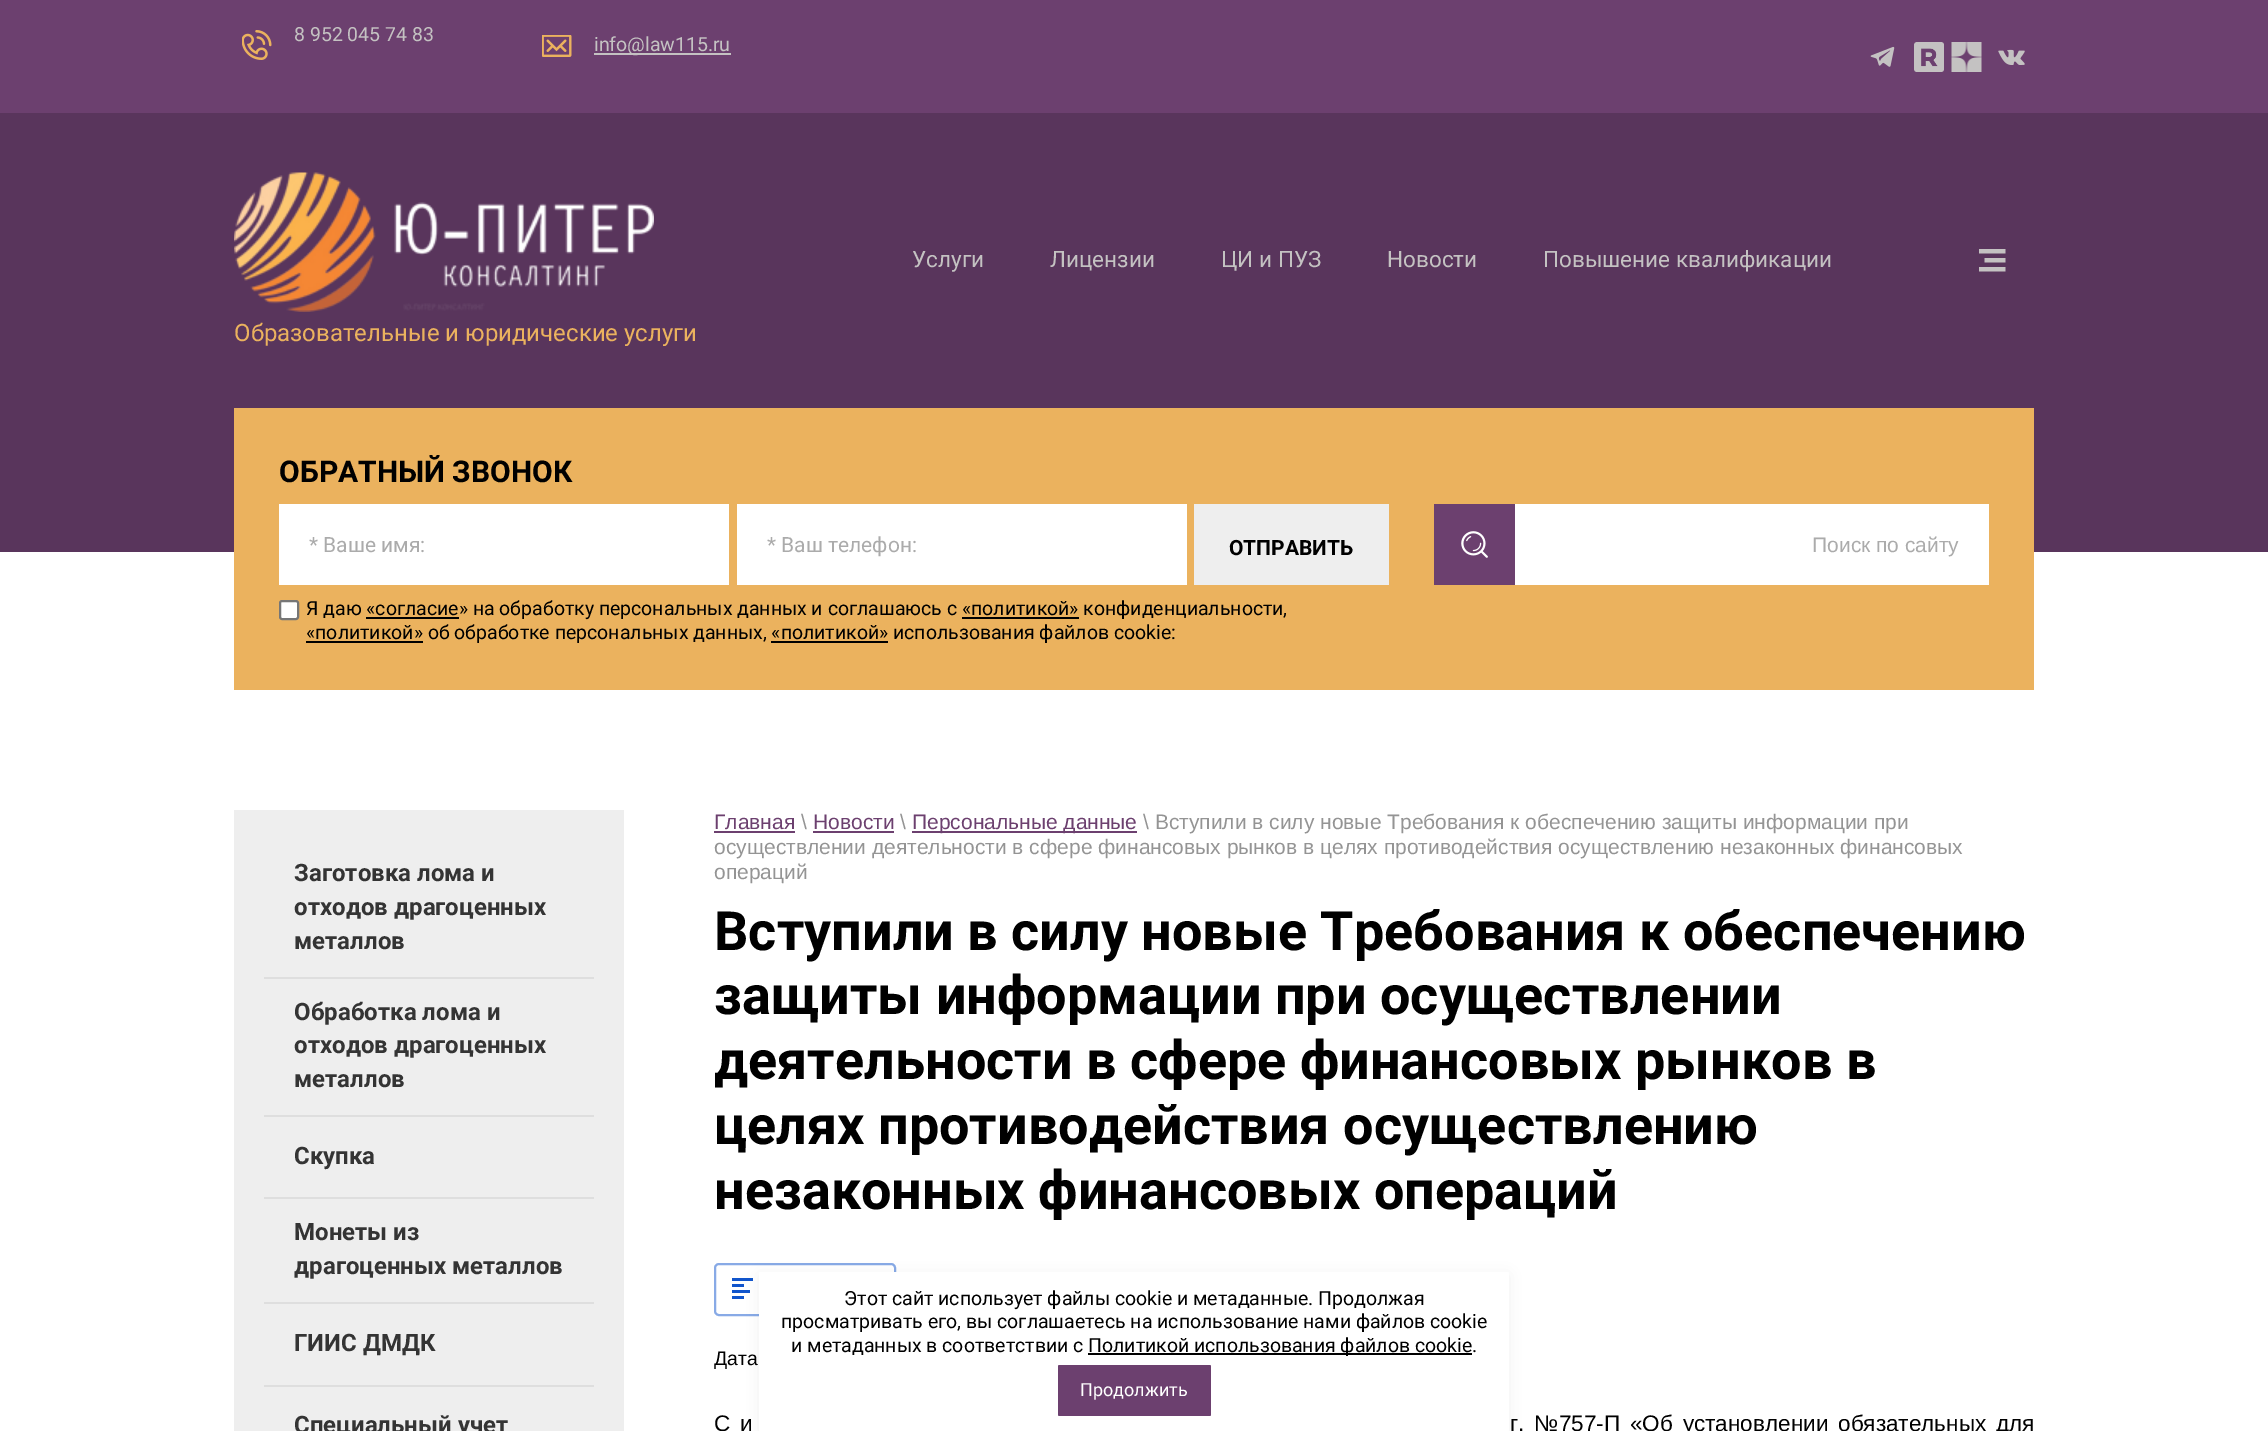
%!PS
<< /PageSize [2268 1431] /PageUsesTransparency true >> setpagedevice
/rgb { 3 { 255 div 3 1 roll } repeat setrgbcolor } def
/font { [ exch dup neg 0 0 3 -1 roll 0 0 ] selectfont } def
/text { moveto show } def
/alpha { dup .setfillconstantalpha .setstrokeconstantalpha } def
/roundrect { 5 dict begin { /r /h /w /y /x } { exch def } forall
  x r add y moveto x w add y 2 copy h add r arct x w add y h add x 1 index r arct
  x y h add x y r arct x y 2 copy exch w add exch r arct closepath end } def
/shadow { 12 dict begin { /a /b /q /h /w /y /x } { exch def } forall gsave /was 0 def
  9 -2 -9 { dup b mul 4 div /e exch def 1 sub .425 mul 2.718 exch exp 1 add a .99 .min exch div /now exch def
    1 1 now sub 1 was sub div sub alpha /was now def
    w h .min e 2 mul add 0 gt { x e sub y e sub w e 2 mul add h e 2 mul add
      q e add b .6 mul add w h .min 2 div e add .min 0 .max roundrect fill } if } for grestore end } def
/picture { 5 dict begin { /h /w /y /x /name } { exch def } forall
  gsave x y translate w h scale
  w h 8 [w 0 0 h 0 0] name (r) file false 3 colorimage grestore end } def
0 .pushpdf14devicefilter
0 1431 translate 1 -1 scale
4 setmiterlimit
255 255 255 rgb
0 0 2268 1431 rectfill
gsave 0 113 moveto 2268 0 rlineto 0 439 rlineto -2268 0 rlineto closepath clip newpath
<< /ShadingType 2 /ColorSpace /DeviceRGB /Coords [1134 690 1134 0] /Extend [true true] /Function << /FunctionType 3 /Domain [0 1] /Functions [<< /FunctionType 2 /Domain [0 1] /C0 [1 1 1] /C1 [1 1 1] /N 1 >> << /FunctionType 2 /Domain [0 1] /C0 [0.349 0.208 0.361] /C1 [0.349 0.208 0.361] /N 1 >>] /Bounds [0.2] /Encode [0 1 0 1] >> >> shfill grestore
108 64 111 rgb
0 0 2268 113 rectfill
(img_01.rgb) 242 30 30 30 picture
(img_02.rgb) 542 35 30 22 picture
196 194 194 rgb
594 53 137 2 rectfill
(img_03.rgb) 1870 46 25 21 picture
(img_04.rgb) 1914 42 30 30 picture
(img_05.rgb) 1951 42 31 30 picture
(img_06.rgb) 1998 49 27 16 picture
(img_07.rgb) 1979 249 27 23 picture
(img_08.rgb) 234 172 420 140 picture
235 178 94 rgb
234 408 1800 282 rectfill
255 255 255 rgb
279 504 450 81 rectfill
737 504 450 81 rectfill
238 238 238 rgb
1194 504 195 81 rectfill
255 255 255 rgb
280 601 18 18 2 roundrect gsave fill grestore
118 118 118 rgb
2 setlinewidth
stroke
0 0 0 rgb
366 617 93 2 rectfill
962 617 117 2 rectfill
306 641 117 2 rectfill
771 641 117 2 rectfill
108 64 111 rgb
1434 504 81 81 rectfill
(img_09.rgb) 1461 531 27 27 picture
255 255 255 rgb
1515 504 474 81 rectfill
238 238 238 rgb
234 810 390 621 rectfill
222 222 222 rgb
264 977 330 2 rectfill
264 1115 330 2 rectfill
264 1197 330 2 rectfill
264 1302 330 2 rectfill
264 1385 330 2 rectfill
108 64 111 rgb
714 831 81 2 rectfill
813 831 81 2 rectfill
912 831 225 2 rectfill
136 170 230 rgb
715 1264 180 51 4 roundrect stroke
(img_10.rgb) 732 1278 21 21 picture
0 0 0 rgb
759 1274 750 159 1.5 7.5 0.06 shadow
255 255 255 rgb
759 1272 750 159 1.5 roundrect fill
0 0 0 rgb
1088 1353 384 2 rectfill
108 64 111 rgb
1058 1365 153 51 1.5 roundrect fill
/Roboto-Regular 19.5 font
196 194 194 rgb
(8 952 045 74 83) 294 41 text
(info@law115.ru) 594 51 text
/Roboto-Regular 22.5 font
(Услуги) 912 267 text
(Лицензии) 1050 267 text
(ЦИ и ПУЗ) 1221 267 text
(Новости) 1387 267 text
(Повышение квалификации) 1543 267 text
/Roboto-Regular 24 font
235 178 94 rgb
(Образовательные и юридические услуги) 234 341 text
/Roboto-Bold 30 font
0 0 0 rgb
(ОБРАТНЫЙ ЗВОНОК) 279 482 text
/Roboto-Regular 21 font
171 171 171 rgb
(* Ваше имя:) 309 552 text
(* Ваш телефон:) 767 552 text
/Roboto-Bold 21 font
0 0 0 rgb
(ОТПРАВИТЬ) 1229 555 text
/Roboto-Regular 19.5 font
(Я даю «согласие» на обработку персональных данных и соглашаюсь с «политикой» конфиденциальности,) 306 615 text
(«политикой» об обработке персональных данных, «политикой» использования файлов cookie:) 306 639 text
/LiberationSans-Regular 21 font
171 171 171 rgb
(Поиск по сайту) 1812 552 text
/Roboto-Bold 24 font
52 52 52 rgb
(Заготовка лома и) 294 881 text
(отходов драгоценных) 294 915 text
(металлов) 294 949 text
(Обработка лома и) 294 1020 text
(отходов драгоценных) 294 1053 text
(металлов) 294 1087 text
(Скупка) 294 1164 text
(Монеты из) 294 1240 text
(драгоценных металлов) 294 1274 text
(ГИИС ДМДК) 294 1351 text
(Специальный учет) 294 1433 text
/LiberationSans-Regular 21 font
108 64 111 rgb
(Главная) 714 829 text
148 148 148 rgb
(\\) 801 829 text
108 64 111 rgb
(Новости) 813 829 text
148 148 148 rgb
(\\) 900 829 text
108 64 111 rgb
(Персональные данные) 912 829 text
148 148 148 rgb
(\\ Вступили в силу новые Требования к обеспечению защиты информации при) 1143 829 text
(осуществлении деятельности в сфере финансовых рынков в целях противодействия осуществлению незаконных финансовых) 714 854 text
(операций) 714 879 text
/Roboto-Bold 54 font
0 0 0 rgb
(Вступили в силу новые Требования к обеспечению) 714 950 text
(защиты информации при осуществлении) 714 1014 text
(деятельности в сфере финансовых рынков в) 714 1079 text
(целях противодействия осуществлению) 714 1144 text
(незаконных финансовых операций) 714 1209 text
/LiberationSans-Regular 19.5 font
(Дата) 714 1365 text
/LiberationSans-Regular 22.5 font
714 1431 moveto 3.75 0 32 (С и) widthshow
1510 1431 moveto 3.75 0 32 (г. №757-П «Об установлении обязательных для) widthshow
/Roboto-Regular 19.5 font
(Этот сайт использует файлы cookie и метаданные. Продолжая) 844 1305 text
(просматривать его, вы соглашаетесь на использование нами файлов cookie) 781 1328 text
(и метаданных в соответствии с) 791 1352 text
(Политикой использования файлов cookie.) 1088 1352 text
/Roboto-Regular 18 font
255 255 255 rgb
(Продолжить) 1080 1396 text
.poppdf14devicefilter showpage
